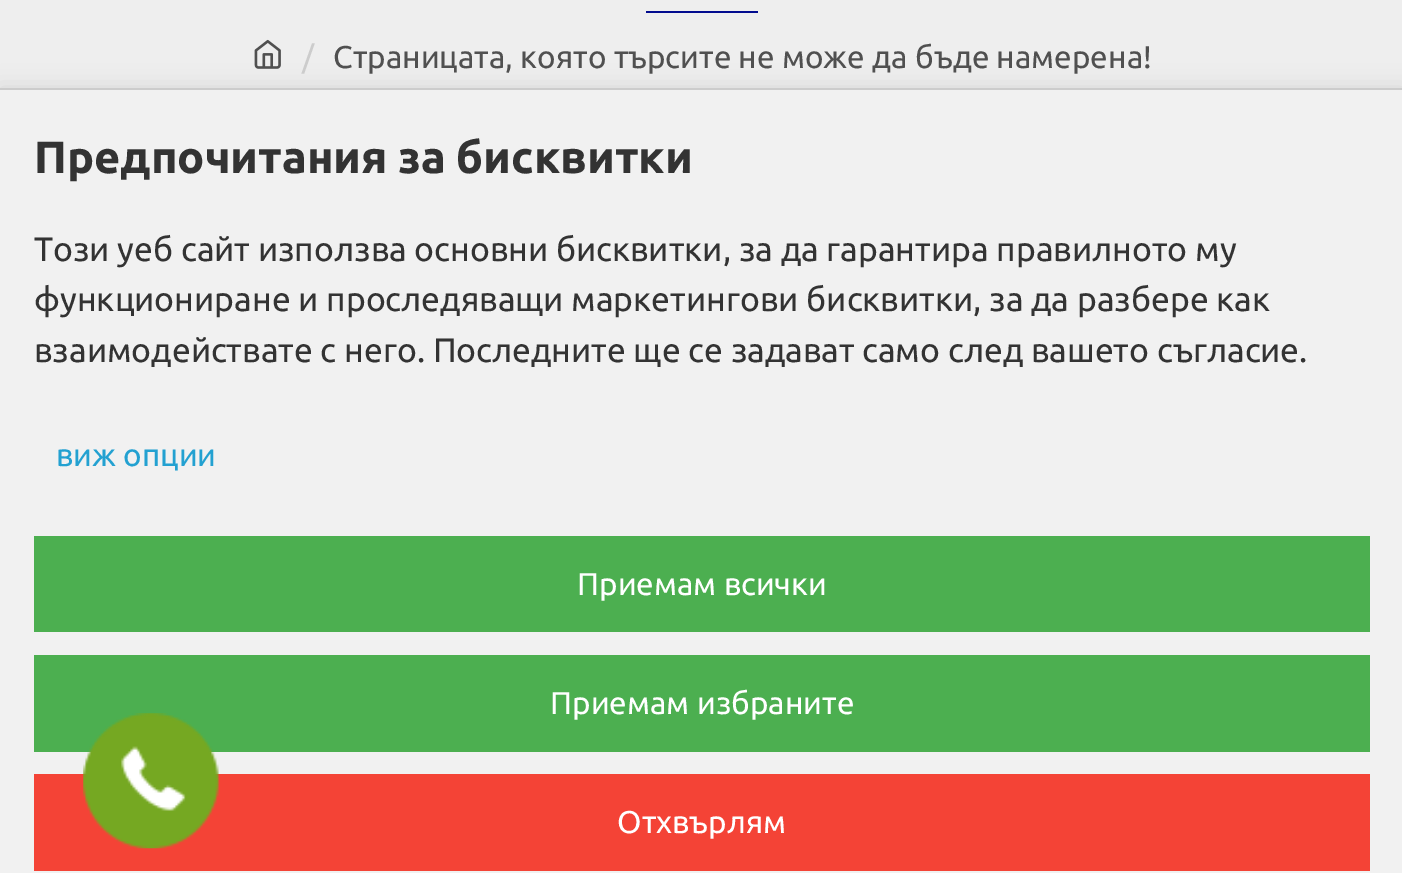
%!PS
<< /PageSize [1402 873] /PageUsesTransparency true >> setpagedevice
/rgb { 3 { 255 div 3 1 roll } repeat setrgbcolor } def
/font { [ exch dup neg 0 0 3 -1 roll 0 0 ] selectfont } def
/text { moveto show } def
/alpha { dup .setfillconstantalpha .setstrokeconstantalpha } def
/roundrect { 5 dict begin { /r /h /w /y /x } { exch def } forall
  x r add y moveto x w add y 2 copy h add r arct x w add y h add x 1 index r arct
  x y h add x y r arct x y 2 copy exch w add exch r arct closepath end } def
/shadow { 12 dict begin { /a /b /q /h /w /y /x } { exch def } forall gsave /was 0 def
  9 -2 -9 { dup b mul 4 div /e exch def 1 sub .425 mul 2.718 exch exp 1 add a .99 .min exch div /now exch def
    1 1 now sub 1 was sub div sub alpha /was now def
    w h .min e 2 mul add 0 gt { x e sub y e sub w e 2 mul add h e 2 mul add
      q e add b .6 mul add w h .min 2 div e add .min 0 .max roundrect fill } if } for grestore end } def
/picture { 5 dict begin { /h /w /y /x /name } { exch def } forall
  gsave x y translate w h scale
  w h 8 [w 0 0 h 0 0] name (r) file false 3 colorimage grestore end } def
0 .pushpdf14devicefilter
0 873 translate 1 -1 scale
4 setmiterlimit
238 238 238 rgb
0 0 1402 873 rectfill
1 11 142 rgb
646 11 112 2 rectfill
(img_01.rgb) 254 39 27 30 picture
0 0 0 rgb
0 88 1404 785 0 11 0.1 shadow
241 241 241 rgb
0 90 1402 783 rectfill
204 204 204 rgb
0 88 1402 2 rectfill
76 175 80 rgb
34 536 1336 96 rectfill
34 655 1336 97 rectfill
244 67 54 rgb
34 774 1336 97 rectfill
(img_02.rgb) 83 713 136 136 picture
/Ubuntu-Regular 31.5 font
204 204 204 rgb
(/) 302 68 text
80 80 80 rgb
(Страницата, която търсите не може да бъде намерена!) 333 68 text
/Ubuntu-Bold 45 font
51 51 51 rgb
(Предпочитания за бисквитки) 34 173 text
/Ubuntu-Regular 33.75 font
(Този уеб сайт използва основни бисквитки, за да гарантира правилното му) 34 261 text
(функциониране и проследяващи маркетингови бисквитки, за да разбере как) 34 311 text
(взаимодействате с него. Последните ще се задават само след вашето съгласие.) 34 362 text
/Ubuntu-Regular 31.5 font
35 161 209 rgb
(виж опции) 56 466 text
255 255 255 rgb
(Приемам всички) 577 595 text
(Приемам избраните) 550 714 text
(Отхвърлям) 617 833 text
.poppdf14devicefilter showpage
